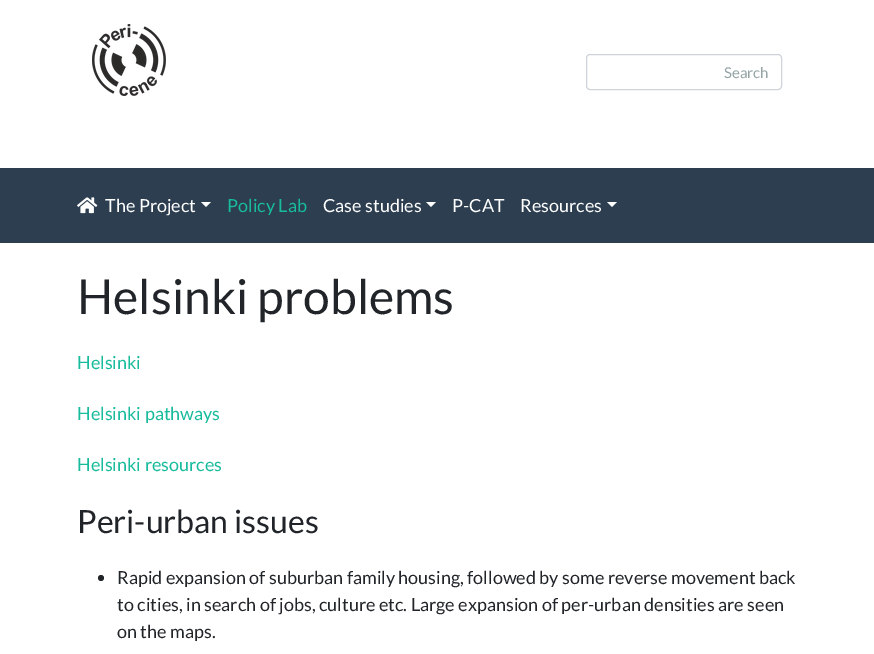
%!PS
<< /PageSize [874 654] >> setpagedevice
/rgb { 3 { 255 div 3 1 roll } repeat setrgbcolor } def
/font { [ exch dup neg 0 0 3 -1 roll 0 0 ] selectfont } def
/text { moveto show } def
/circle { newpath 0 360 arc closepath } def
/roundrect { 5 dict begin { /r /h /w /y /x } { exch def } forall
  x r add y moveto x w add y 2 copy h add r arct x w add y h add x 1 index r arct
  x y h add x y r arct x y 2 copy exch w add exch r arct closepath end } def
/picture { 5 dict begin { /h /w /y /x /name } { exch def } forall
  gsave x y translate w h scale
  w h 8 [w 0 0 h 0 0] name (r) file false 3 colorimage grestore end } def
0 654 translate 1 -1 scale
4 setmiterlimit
255 255 255 rgb
0 0 874 654 rectfill
(img_01.rgb) 92 24 74 72 picture
206 212 218 rgb
586.5 54.5 195 35 3.5 roundrect stroke
44 62 80 rgb
0 168 874 75 rectfill
(img_02.rgb) 77 197 21 17 picture
255 255 255 rgb
201 202 moveto 10 0 rlineto -5 5 rlineto closepath fill
426 202 moveto 10 0 rlineto -5 5 rlineto closepath fill
607 202 moveto 10 0 rlineto -5 5 rlineto closepath fill
33 37 41 rgb
101 578 3 circle fill
/Lato-Regular 15 font
149 165 166 rgb
(Search) 724 78 text
/Lato-Regular 18 font
255 255 255 rgb
(The Project) 105 212 text
24 188 156 rgb
(Policy Lab) 227 212 text
255 255 255 rgb
(Case studies) 323 212 text
(P-CAT) 452 212 text
(Resources) 520 212 text
/Lato-Regular 48 font
33 37 41 rgb
(Helsinki problems) 77 314 text
/Lato-Regular 18 font
24 188 156 rgb
(Helsinki) 77 369 text
(Helsinki pathways) 77 420 text
(Helsinki resources) 77 471 text
/Lato-Regular 32 font
33 37 41 rgb
(Peri-urban issues) 77 533 text
/Lato-Regular 18 font
(Rapid expansion of suburban family housing, followed by some reverse movement back) 117 584 text
(to cities, in search of jobs, culture etc. Large expansion of per-urban densities are seen) 117 611 text
(on the maps.) 117 638 text
showpage
